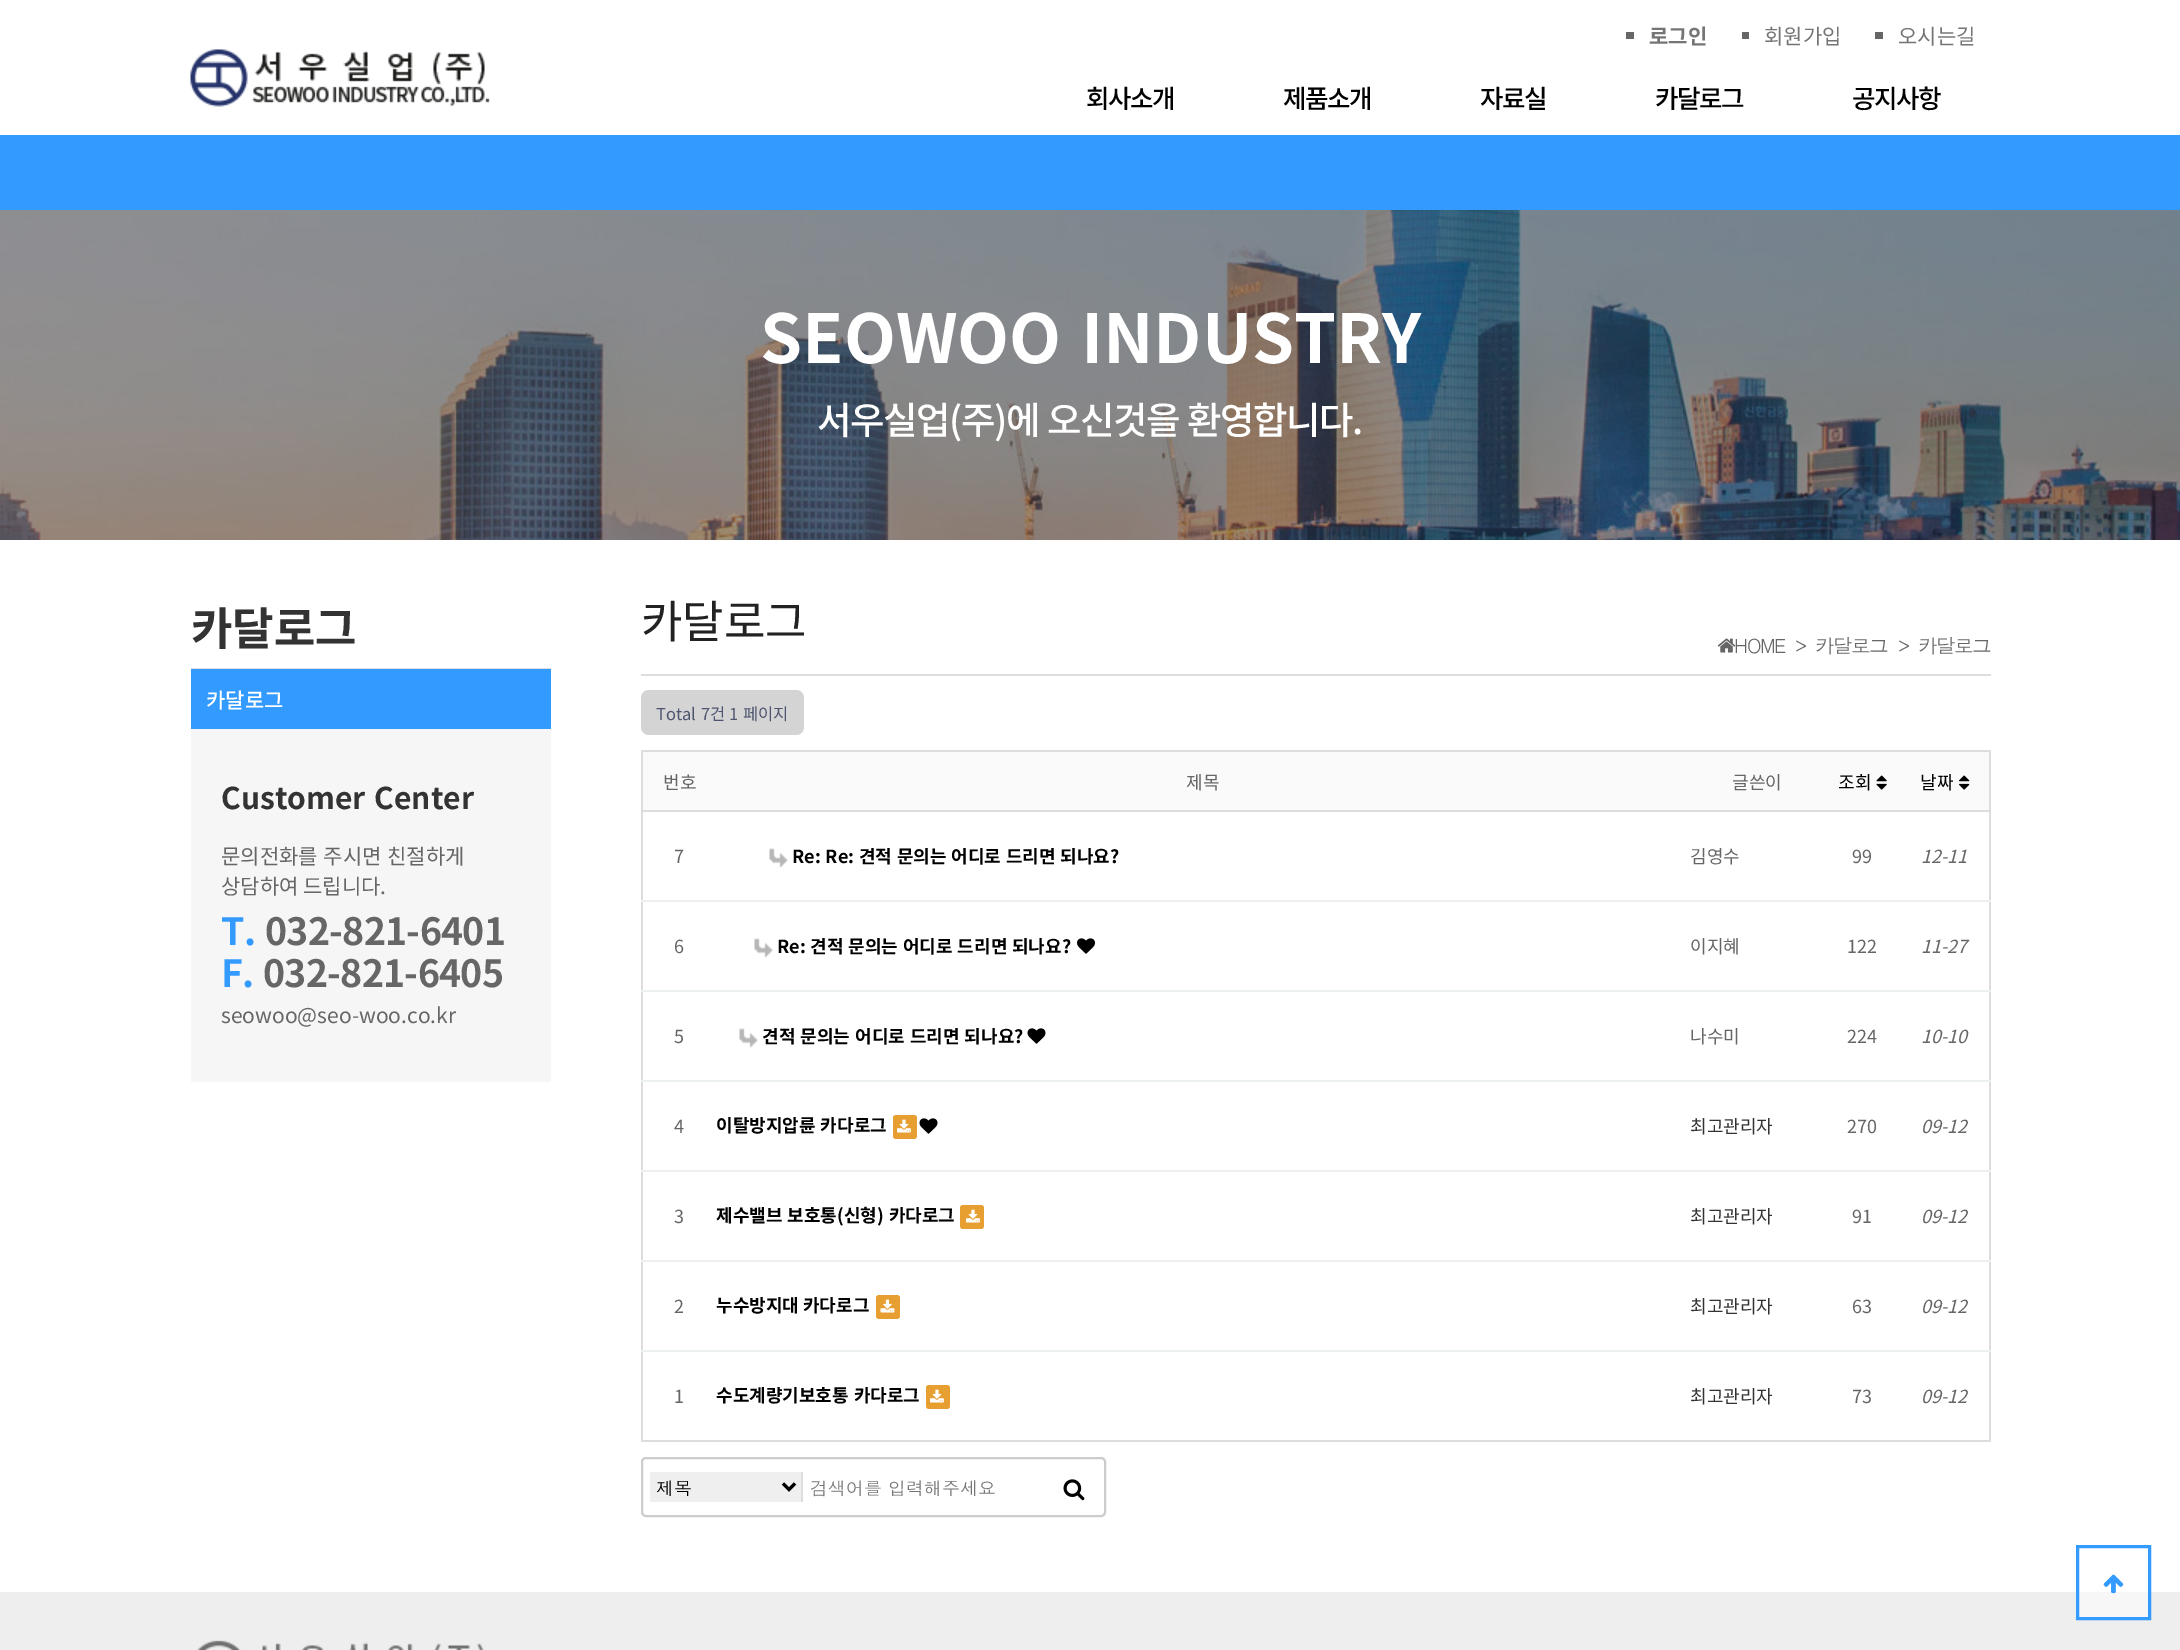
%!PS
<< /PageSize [2180 1650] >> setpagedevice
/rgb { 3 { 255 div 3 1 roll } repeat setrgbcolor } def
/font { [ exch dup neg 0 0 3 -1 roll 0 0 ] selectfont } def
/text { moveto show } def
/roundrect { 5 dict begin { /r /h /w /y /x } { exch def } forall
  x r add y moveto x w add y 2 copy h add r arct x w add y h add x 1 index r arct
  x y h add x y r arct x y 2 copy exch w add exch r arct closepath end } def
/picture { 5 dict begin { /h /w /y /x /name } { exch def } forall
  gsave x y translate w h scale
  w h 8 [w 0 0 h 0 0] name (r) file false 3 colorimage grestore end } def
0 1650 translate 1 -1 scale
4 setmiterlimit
255 255 255 rgb
0 0 2180 1650 rectfill
102 102 102 rgb
1626 32 8 7 rectfill
1742 32 7 7 rectfill
1875 32 8 7 rectfill
(img_01.rgb) 190 49 300 58 picture
51 154 255 rgb
0 135 2180 75 rectfill
(img_02.rgb) 0 210 2180 330 picture
221 221 221 rgb
191 668 360 1 rectfill
51 154 255 rgb
191 669 360 60 rectfill
246 246 246 rgb
191 729 360 353 rectfill
221 221 221 rgb
641 674 1350 2 rectfill
(img_03.rgb) 1717 638 19 15 picture
212 212 212 rgb
641 690 163 45 8 roundrect fill
221 221 221 rgb
641 750 1350 2 rectfill
1989 750 2 692 rectfill
641 1440 1350 2 rectfill
641 750 2 692 rectfill
250 250 250 rgb
643 752 1346 58 rectfill
(img_04.rgb) 1876 775 11 15 picture
221 221 221 rgb
641 810 1350 2 rectfill
(img_05.rgb) 1959 775 11 15 picture
(img_06.rgb) 769 848 19 20 picture
(img_06.rgb) 754 938 19 20 picture
(img_07.rgb) 1077 938 18 16 picture
236 240 241 rgb
641 900 1350 2 rectfill
(img_06.rgb) 739 1028 19 20 picture
(img_08.rgb) 1027 1028 19 16 picture
641 990 1350 2 rectfill
232 159 49 rgb
893 1115 24 24 3 roundrect fill
(img_09.rgb) 897 1119 14 14 picture
(img_08.rgb) 919 1118 19 16 picture
236 240 241 rgb
641 1080 1350 2 rectfill
232 159 49 rgb
960 1205 24 24 3 roundrect fill
(img_09.rgb) 966 1209 14 14 picture
236 240 241 rgb
641 1170 1350 2 rectfill
232 159 49 rgb
876 1295 24 24 3 roundrect fill
(img_10.rgb) 880 1299 15 14 picture
236 240 241 rgb
641 1260 1350 2 rectfill
232 159 49 rgb
926 1385 24 24 3 roundrect fill
(img_09.rgb) 930 1389 14 14 picture
236 240 241 rgb
641 1350 1350 2 rectfill
204 204 204 rgb
2 setlinewidth
642 1458 463 58 4 roundrect stroke
239 239 239 rgb
650 1472 151 30 rectfill
221 221 221 rgb
801 1472 2 30 rectfill
0 0 0 rgb
3 setlinewidth
783 1483.5 moveto 6 6 rlineto 6 -6 rlineto stroke
(img_11.rgb) 1063 1479 22 22 picture
238 238 238 rgb
0 1592 2180 58 rectfill
247 247 247 rgb
2079 1592 69 25 rectfill
51 154 255 rgb
2077.5 1546.5 72 72 rectstroke
(img_12.rgb) 2103 1574 21 20 picture
(img_13.rgb) 197 1640 287 10 picture
/NotoSansKR-Bold 21 font
117 117 117 rgb
(로그인) 1649 44 text
/NotoSansKR-Regular 21 font
(회원가입) 1764 44 text
(오시는길) 1898 44 text
/NotoSansKR-Medium 25.5 font
0 0 0 rgb
1086 108 moveto -1.5 0 (회사소개) ashow
1283 108 moveto -1.5 0 (제품소개) ashow
1480 108 moveto -1.5 0 (자료실) ashow
1655 108 moveto -1.5 0 (카달로그) ashow
1852 108 moveto -1.5 0 (공지사항) ashow
/NotoSansKR-Bold 67.5 font
255 255 255 rgb
760 363 moveto 4 0 32 (SEOWOO INDUSTRY) widthshow
/NotoSansKR-Medium 37.5 font
817 434 moveto 1 0 32 -1.5 0 (서우실업\(주\)에 오신것을 환영합니다.) awidthshow
/NotoSansKR-Bold 45 font
51 51 51 rgb
(카달로그) 191 645 text
/NotoSansKR-Medium 21 font
255 255 255 rgb
(카달로그) 206 708 text
/NotoSansKR-Bold 30 font
51 51 51 rgb
221 809 moveto 2 0 32 (Customer Center) widthshow
/NotoSansKR-Regular 21 font
102 102 102 rgb
221 864 moveto 1 0 32 (문의전화를 주시면 친절하게) widthshow
(상담하여 드립니다.) 221 894 text
/NotoSansKR-Bold 37.5 font
51 154 255 rgb
221 945 moveto -0.75 0 (T.) ashow
102 102 102 rgb
265 945 moveto -0.75 0 (032-821-6401) ashow
51 154 255 rgb
221 987 moveto -0.75 0 (F.) ashow
102 102 102 rgb
263 987 moveto -0.75 0 (032-821-6405) ashow
/NotoSansKR-Regular 21 font
(seowoo@seo-woo.co.kr) 221 1023 text
/NotoSansKR-Regular 45 font
34 34 34 rgb
(카달로그) 641 638 text
/Dotum-Regular 19.5 font
102 102 102 rgb
1734 653 moveto -1.5 0 (HOME  >  카달로그  >  카달로그) ashow
/NotoSansKR-Regular 16.5 font
78 84 111 rgb
656 720 moveto 1 0 32 (Total 7건) widthshow
729 720 moveto 1 0 32 (1 페이지) widthshow
/NotoSansKR-Regular 18 font
102 102 102 rgb
(번호) 663 789 text
(제목) 1186 789 text
(글쓴이) 1732 789 text
0 0 0 rgb
(조회) 1838 789 text
(날짜) 1920 789 text
102 102 102 rgb
(7) 674 863 text
/NotoSansKR-Bold 18 font
0 0 0 rgb
792 863 moveto 0.75 0 32 (Re: Re: 견적 문의는 어디로 드리면 되나요?) widthshow
/NotoSansKR-Regular 18 font
102 102 102 rgb
(김영수) 1690 863 text
(99) 1852 863 text
/NotoSansKR-Italic 18 font
(12-11) 1921 863 text
/NotoSansKR-Regular 18 font
(6) 674 953 text
/NotoSansKR-Bold 18 font
0 0 0 rgb
777 953 moveto 0.75 0 32 (Re: 견적 문의는 어디로 드리면 되나요?) widthshow
/NotoSansKR-Regular 18 font
102 102 102 rgb
(이지혜) 1690 953 text
(122) 1847 953 text
/NotoSansKR-Italic 18 font
(11-27) 1921 953 text
/NotoSansKR-Regular 18 font
(5) 674 1043 text
/NotoSansKR-Bold 18 font
0 0 0 rgb
762 1043 moveto 1 0 32 (견적 문의는 어디로 드리면 되나요?) widthshow
/NotoSansKR-Regular 18 font
102 102 102 rgb
(나수미) 1690 1043 text
(224) 1847 1043 text
/NotoSansKR-Italic 18 font
(10-10) 1921 1043 text
/NotoSansKR-Regular 18 font
(4) 674 1133 text
/NotoSansKR-Bold 18 font
0 0 0 rgb
716 1132 moveto 1 0 32 (이탈방지압륜 카다로그) widthshow
/NotoSansKR-Regular 18 font
51 51 51 rgb
(최고관리자) 1690 1133 text
102 102 102 rgb
(270) 1847 1133 text
/NotoSansKR-Italic 18 font
(09-12) 1921 1133 text
/NotoSansKR-Regular 18 font
(3) 674 1223 text
/NotoSansKR-Bold 18 font
0 0 0 rgb
716 1222 moveto 1 0 32 (제수밸브 보호통\(신형\) 카다로그) widthshow
/NotoSansKR-Regular 18 font
51 51 51 rgb
(최고관리자) 1690 1223 text
102 102 102 rgb
(91) 1852 1223 text
/NotoSansKR-Italic 18 font
(09-12) 1921 1223 text
/NotoSansKR-Regular 18 font
(2) 674 1313 text
/NotoSansKR-Bold 18 font
0 0 0 rgb
(누수방지대 카다로그) 716 1312 text
/NotoSansKR-Regular 18 font
51 51 51 rgb
(최고관리자) 1690 1313 text
102 102 102 rgb
(63) 1852 1313 text
/NotoSansKR-Italic 18 font
(09-12) 1921 1313 text
/NotoSansKR-Regular 18 font
(1) 674 1403 text
/NotoSansKR-Bold 18 font
0 0 0 rgb
716 1402 moveto 1 0 32 (수도계량기보호통 카다로그) widthshow
/NotoSansKR-Regular 18 font
51 51 51 rgb
(최고관리자) 1690 1403 text
102 102 102 rgb
(73) 1852 1403 text
/NotoSansKR-Italic 18 font
(09-12) 1921 1403 text
/Dotum-Regular 18 font
0 0 0 rgb
(제목) 656 1495 text
117 117 117 rgb
(검색어를 입력해주세요) 810 1495 text
showpage
